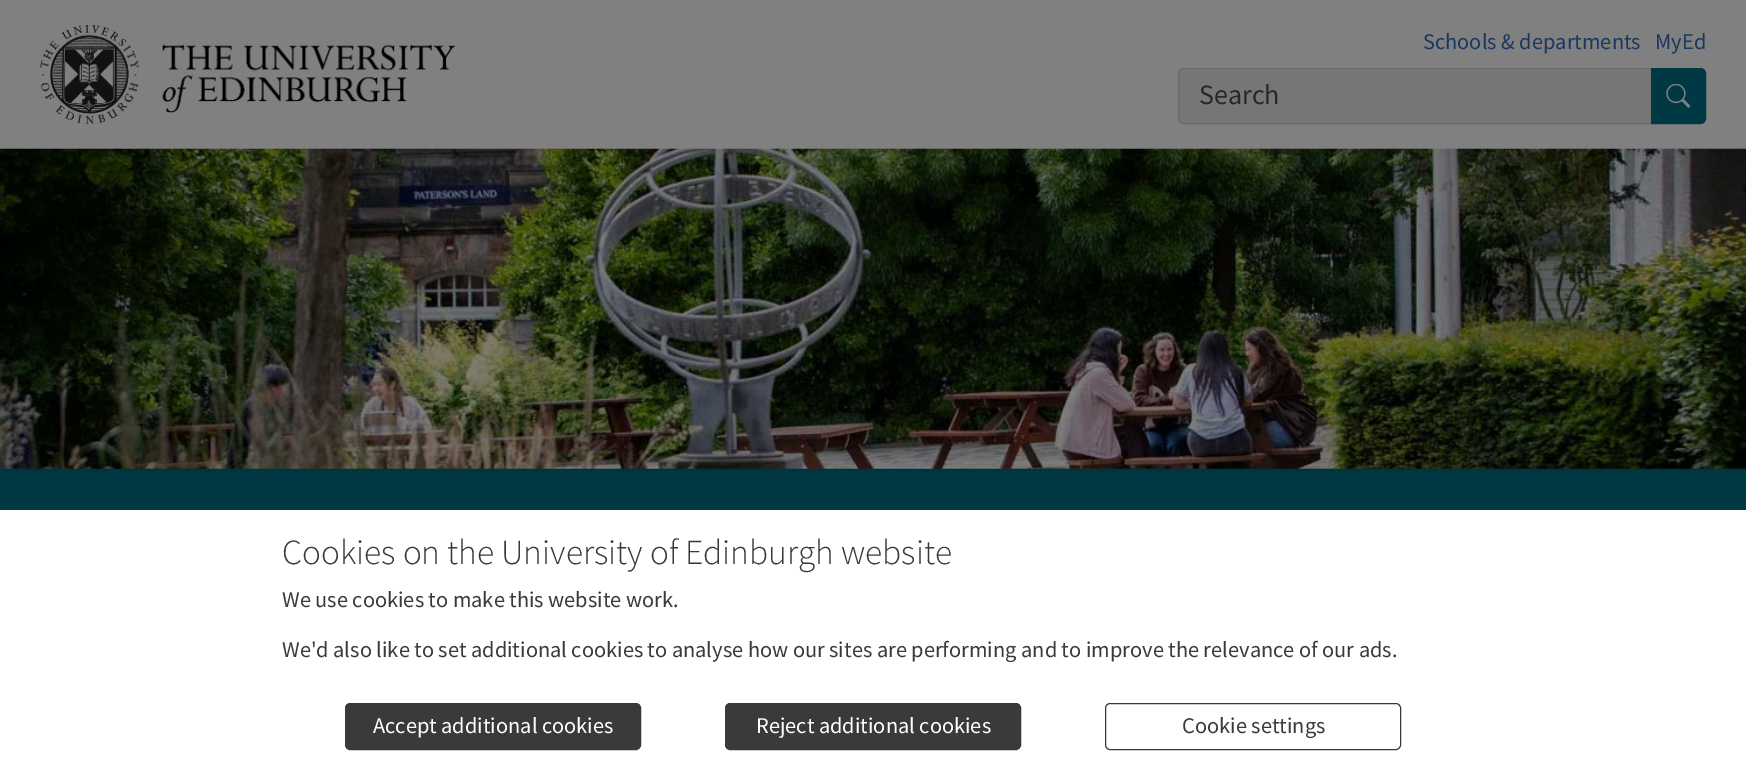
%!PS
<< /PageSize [1746 771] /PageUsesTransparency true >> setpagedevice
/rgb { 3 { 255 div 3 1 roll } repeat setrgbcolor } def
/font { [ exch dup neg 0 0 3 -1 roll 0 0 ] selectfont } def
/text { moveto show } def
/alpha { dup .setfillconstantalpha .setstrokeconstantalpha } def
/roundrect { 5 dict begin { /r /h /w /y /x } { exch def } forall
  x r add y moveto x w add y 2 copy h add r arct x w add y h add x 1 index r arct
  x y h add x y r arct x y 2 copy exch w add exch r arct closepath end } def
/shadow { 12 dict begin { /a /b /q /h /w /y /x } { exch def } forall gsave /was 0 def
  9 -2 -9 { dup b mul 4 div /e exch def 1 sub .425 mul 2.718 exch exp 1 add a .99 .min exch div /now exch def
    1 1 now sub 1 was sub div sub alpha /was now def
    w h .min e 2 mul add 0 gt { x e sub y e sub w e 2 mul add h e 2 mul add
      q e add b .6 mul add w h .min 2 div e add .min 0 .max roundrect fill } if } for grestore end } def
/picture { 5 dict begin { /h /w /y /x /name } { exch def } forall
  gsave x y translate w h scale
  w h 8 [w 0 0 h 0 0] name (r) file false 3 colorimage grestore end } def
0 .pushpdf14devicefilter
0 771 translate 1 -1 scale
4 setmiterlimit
128 128 128 rgb
0 0 1746 771 rectfill
(img_01.rgb) 40 25 415 99 picture
118 118 118 rgb
1184 69 moveto 467 0 rlineto 0 54 rlineto -467 0 rlineto -3 0 -5 -2 -5 -5 rcurveto 0 -44 rlineto 0 -3 2 -5 5 -5 rcurveto closepath fill
106 106 106 rgb
1184 68.5 moveto 468.5 0 rlineto 0 55 rlineto -468.5 0 rlineto -3 0 -5.5 -2.5 -5.5 -5.5 rcurveto 0 -44 rlineto 0 -3 2.5 -5.5 5.5 -5.5 rcurveto closepath stroke
0 57 68 rgb
1651 68 moveto 49 0 rlineto 3.5 0 6 2.5 6 6 rcurveto 0 44 rlineto 0 3.5 -2.5 6 -6 6 rcurveto -49 0 rlineto closepath fill
(img_02.rgb) 1666 84 24 24 picture
1651.5 68.5 moveto 48.5 0 rlineto 3 0 5.5 2.5 5.5 5.5 rcurveto 0 44 rlineto 0 3 -2.5 5.5 -5.5 5.5 rcurveto -48.5 0 rlineto closepath stroke
0 468 1746 42 rectfill
0 0 0 rgb
0 149 1746 320 0 0.5 0.1 shadow
6 160 1734 308 0 4 0.3 shadow
(img_03.rgb) 0 148 1746 321 picture
255 255 255 rgb
0 510 1746 261 rectfill
58 58 58 rgb
345.5 703.5 295 46 4.5 roundrect gsave fill grestore
stroke
725.5 703.5 295 46 4.5 roundrect gsave fill grestore
stroke
1105.5 703.5 295 46 4.5 roundrect stroke
/SourceSansPro-Regular 22.4 font
26 55 96 rgb
(Schools & departments) 1423 49 text
(MyEd) 1655 49 text
/SourceSansPro-Regular 28 font
40 40 40 rgb
(Search) 1199 104 text
/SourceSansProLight-Light 35.3 font
58 58 58 rgb
(Cookies on the University of Edinburgh website) 282 564 text
/SourceSansPro-Regular 22.4 font
(We use cookies to make this website work.) 282 607 text
(We'd also like to set additional cookies to analyse how our sites are performing) 282 657 text
(and to improve the relevance of our ads.) 1021 657 text
255 255 255 rgb
(Accept additional cookies) 373 733 text
(Reject additional cookies) 756 733 text
58 58 58 rgb
(Cookie settings) 1182 733 text
.poppdf14devicefilter showpage
